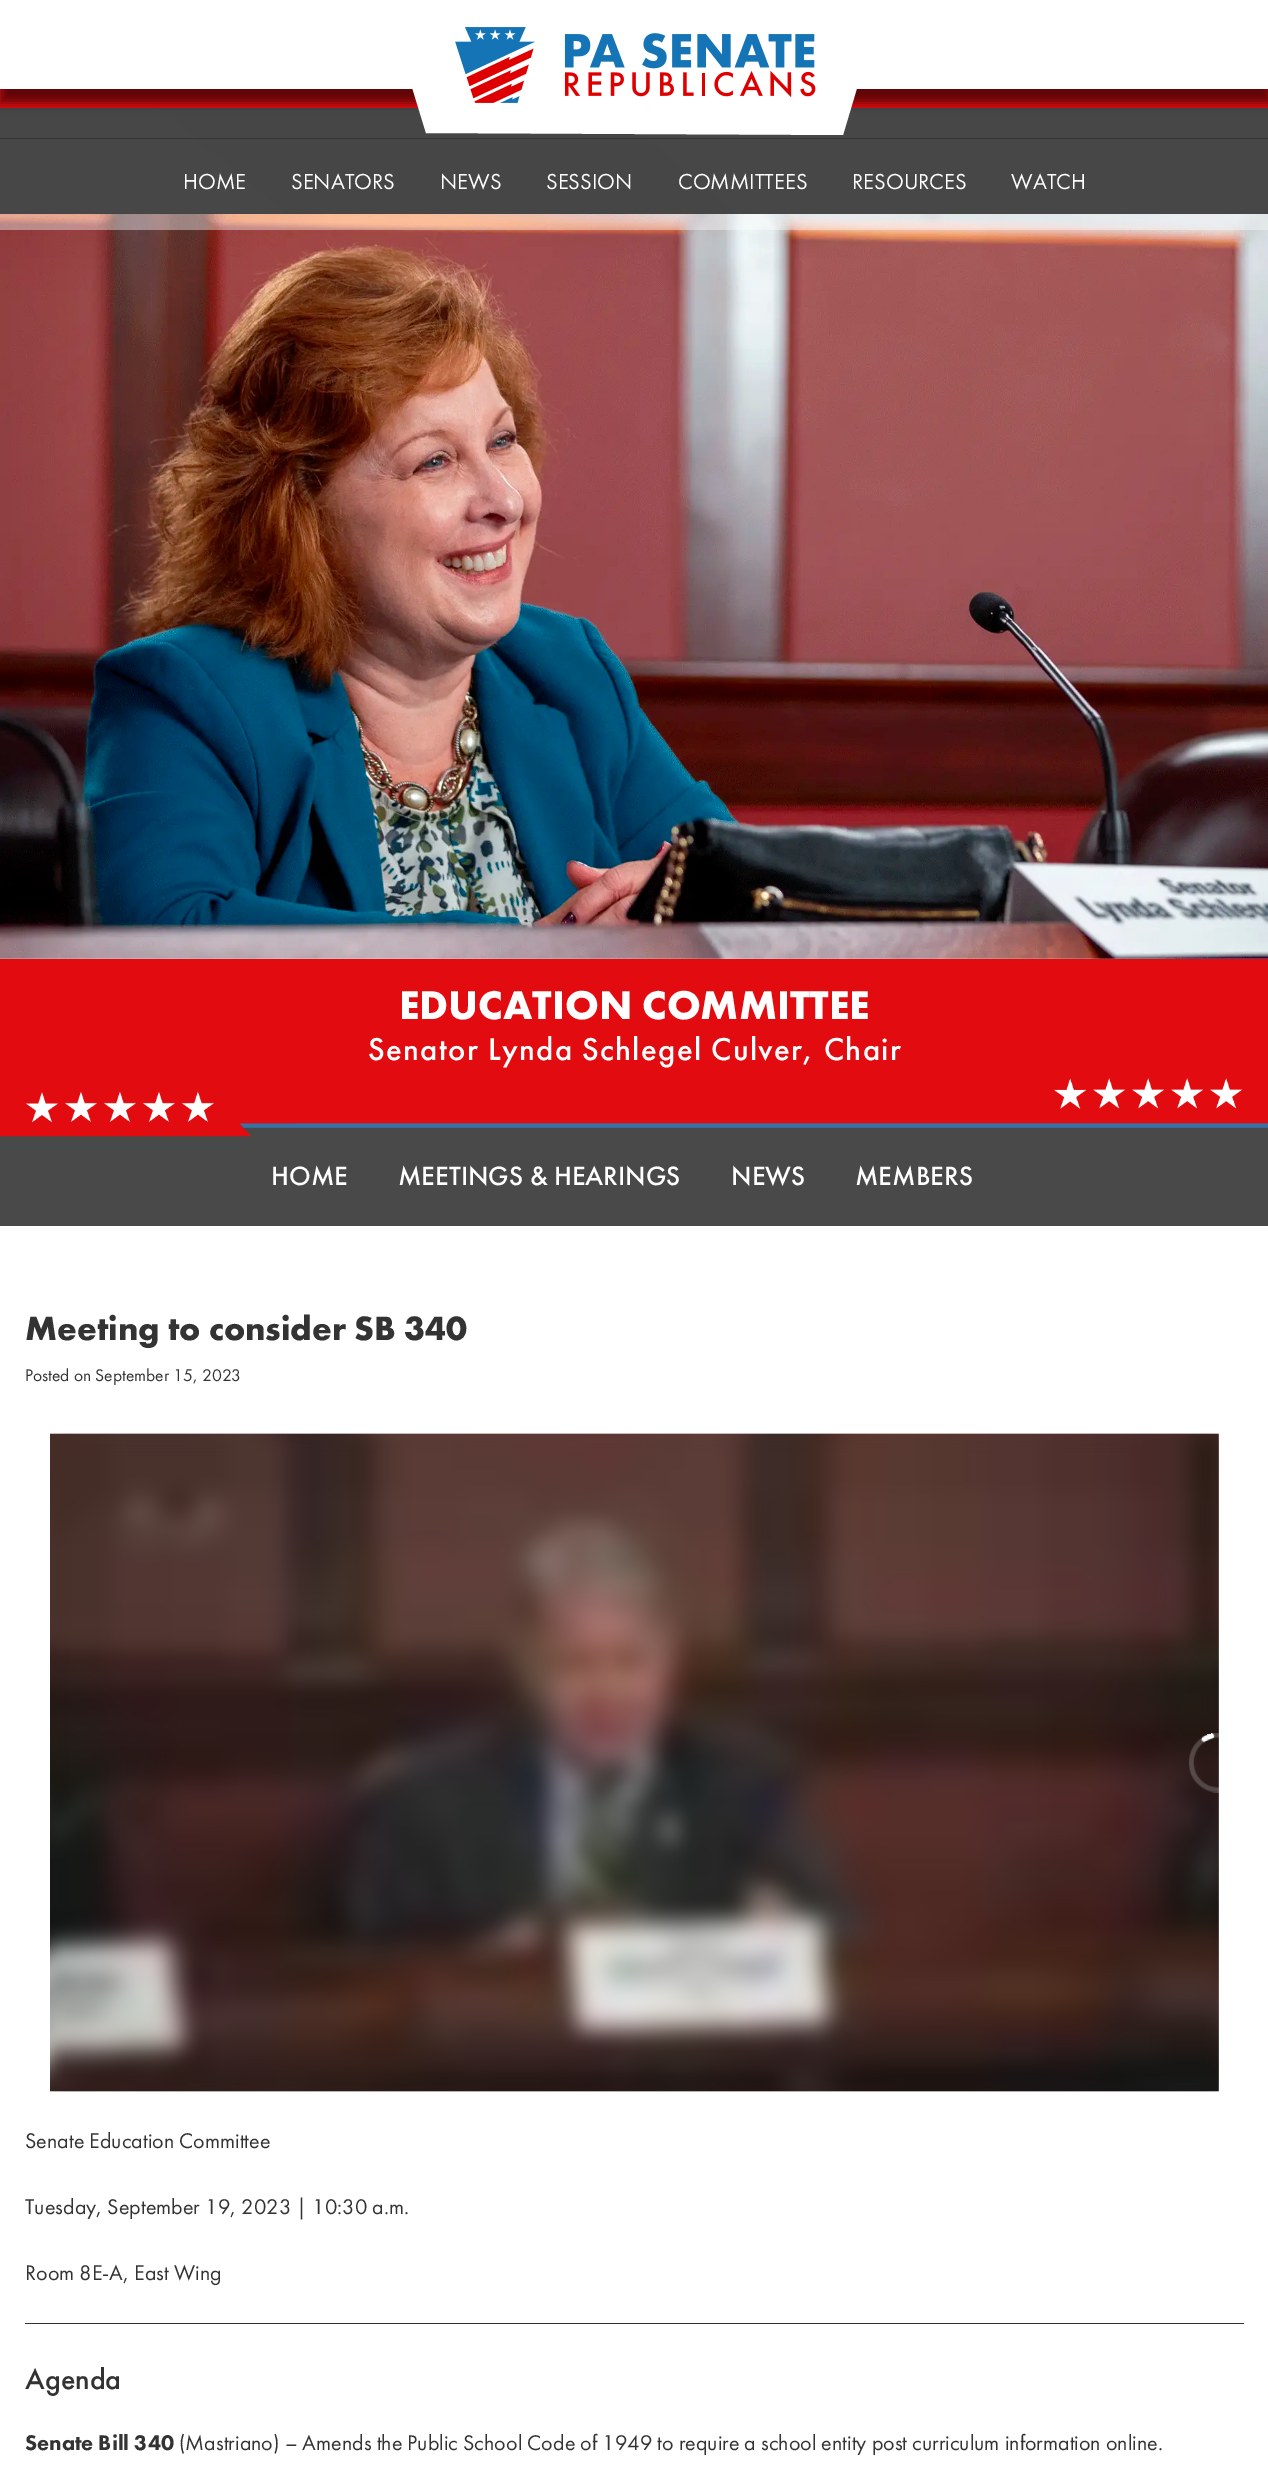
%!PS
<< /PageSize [1268 2483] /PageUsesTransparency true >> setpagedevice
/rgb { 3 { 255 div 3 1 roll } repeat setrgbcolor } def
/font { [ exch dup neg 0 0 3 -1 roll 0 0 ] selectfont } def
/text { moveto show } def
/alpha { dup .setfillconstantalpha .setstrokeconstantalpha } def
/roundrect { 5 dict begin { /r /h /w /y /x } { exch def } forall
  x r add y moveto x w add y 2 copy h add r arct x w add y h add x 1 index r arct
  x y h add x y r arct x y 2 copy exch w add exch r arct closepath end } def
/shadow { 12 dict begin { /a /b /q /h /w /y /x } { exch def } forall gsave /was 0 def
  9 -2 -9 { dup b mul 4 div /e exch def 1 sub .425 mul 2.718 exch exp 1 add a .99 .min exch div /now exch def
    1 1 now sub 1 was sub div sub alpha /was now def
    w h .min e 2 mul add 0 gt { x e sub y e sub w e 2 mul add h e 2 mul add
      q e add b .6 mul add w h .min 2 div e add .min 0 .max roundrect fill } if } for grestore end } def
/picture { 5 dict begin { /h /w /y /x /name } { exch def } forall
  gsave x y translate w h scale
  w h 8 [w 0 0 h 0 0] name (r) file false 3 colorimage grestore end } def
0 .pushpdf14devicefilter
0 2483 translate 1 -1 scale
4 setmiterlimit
255 255 255 rgb
0 0 1268 2483 rectfill
(img_01.rgb) 159 108 578 106 picture
0.9 alpha
51 51 51 rgb
0 108 1268 31 rectfill
1 alpha
226 12 16 rgb
0 89 1268 19 rectfill
0 0 0 rgb
0 11 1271 92 0 5 0.59 shadow
255 255 255 rgb
0 0 1268 89 rectfill
393 25 moveto 0 -4 rlineto 484 0 rlineto -34 114 rlineto -417 -2 rlineto closepath fill
(img_02.rgb) 455 27 361 76 picture
(img_03.rgb) 0 213 1268 746 picture
0.4 alpha
0 213 1268 17 rectfill
0.1 alpha
0 213 472 1 rectfill
0.9 alpha
51 51 51 rgb
0 138 1268 76 rectfill
1 alpha
226 12 16 rgb
0 959 1268 119 rectfill
73 73 73 rgb
0 1127 1268 99 rectfill
(img_04.rgb) 0 1078 1268 59 picture
(img_05.rgb) 50 1433 1169 659 picture
48 48 48 rgb
25 2323 1219 1 rectfill
/FuturaPT-Regular 22.5 font
255 255 255 rgb
(HOME) 183 189 text
(SENATORS) 291 189 text
(NEWS) 440 189 text
(SESSION) 546 189 text
(COMMITTEES) 678 189 text
(RESOURCES) 852 189 text
(WATCH) 1011 189 text
/FuturaPT-Bold 41.6 font
(EDUCATION COMMITTEE) 399 1019 text
/FuturaPT-Medium 32.75 font
368 1060 moveto 1.25 0 (Senator Lynda Schlegel Culver, Chair) ashow
/FuturaPT-Medium 27.5 font
(HOME) 271 1185 text
(MEETINGS & HEARINGS) 398 1185 text
(NEWS) 731 1185 text
(MEMBERS) 855 1185 text
/FuturaPT-Bold 35 font
51 51 51 rgb
(Meeting to consider SB 340) 25 1340 text
/FuturaPT-Regular 17.5 font
(Posted on September 15, 2023) 25 1381 text
/FuturaPT-Regular 22 font
(Senate Education Committee) 25 2148 text
(Tuesday, September 19, 2023 | 10:30 a.m.) 25 2214 text
(Room 8E-A, East Wing) 25 2280 text
/FuturaPT-Medium 30 font
(Agenda) 25 2389 text
/FuturaPT-Black 22 font
(Senate Bill 340) 25 2450 text
/FuturaPT-Regular 22 font
(\(Mastriano\) – Amends the Public School Code of 1949 to require a school entity post curriculum information online.) 179 2450 text
.poppdf14devicefilter showpage
